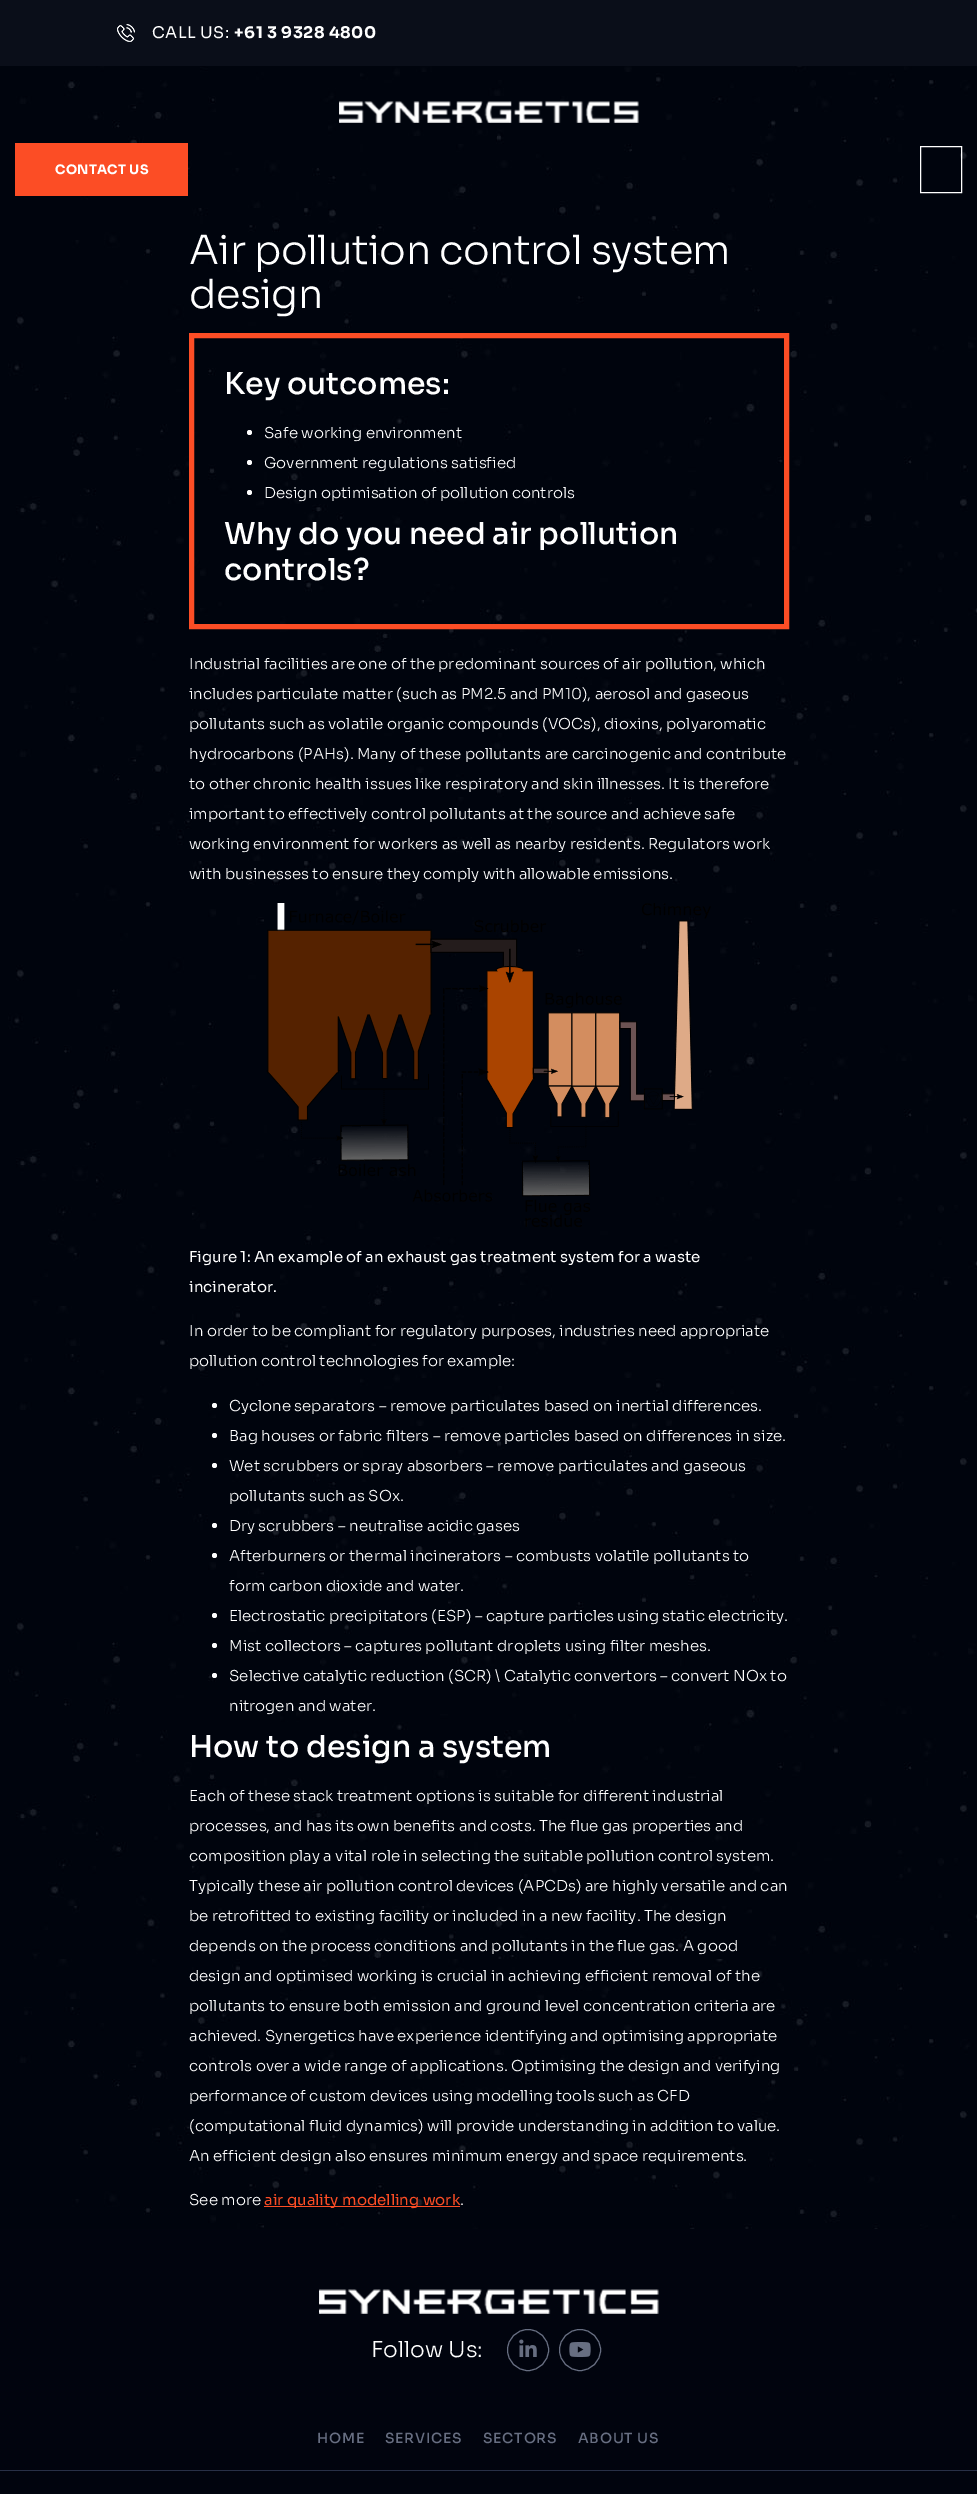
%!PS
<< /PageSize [977 2494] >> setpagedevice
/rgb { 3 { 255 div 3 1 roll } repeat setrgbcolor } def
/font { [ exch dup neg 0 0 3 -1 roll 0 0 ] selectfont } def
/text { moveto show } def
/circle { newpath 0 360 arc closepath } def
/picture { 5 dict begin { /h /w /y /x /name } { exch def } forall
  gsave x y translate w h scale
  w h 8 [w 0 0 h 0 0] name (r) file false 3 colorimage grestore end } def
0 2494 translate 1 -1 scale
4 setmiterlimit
255 255 255 rgb
0 0 977 2494 rectfill
(img_01.rgb) 0 66 977 2163 picture
10 14 25 rgb
0 0 977 66 rectfill
(img_02.rgb) 117 24 18 18 picture
(img_03.rgb) 339 101 300 22 picture
252 77 37 rgb
15 143 173 53 rectfill
255 255 255 rgb
920.5 146.5 41 46 rectstroke
252 77 37 rgb
5 setlinewidth
191.5 335.5 595 291 rectstroke
255 255 255 rgb
249.5 432.5 2.5 circle fill
249.5 462.5 2.5 circle fill
249.5 492.5 2.5 circle fill
(img_04.rgb) 266 903 445 324 picture
214.5 1405.5 2.5 circle fill
214.5 1435.5 2.5 circle fill
214.5 1465.5 2.5 circle fill
214.5 1525.5 2.5 circle fill
214.5 1555.5 2.5 circle fill
214.5 1615.5 2.5 circle fill
214.5 1645.5 2.5 circle fill
214.5 1675.5 2.5 circle fill
252 77 37 rgb
264 2206 196 1 rectfill
1 4 14 rgb
0 2229 977 265 rectfill
(img_05.rgb) 319 2289 340 25 picture
103 110 129 rgb
1 setlinewidth
528 2350 20.5 circle stroke
(img_06.rgb) 519 2339 18 18 picture
580 2350 20.5 circle stroke
(img_07.rgb) 569 2342 22 15 picture
40 48 71 rgb
0 2470 977 1 rectfill
/Sora-Regular 16 font
255 255 255 rgb
152 38 moveto 0.5 0 (CALL US:) ashow
/Sora-Bold 16 font
234 38 moveto 0.5 0 (+61 3 9328 4800) ashow
/Sora-Bold 13 font
55 174 moveto 0.25 0 (CONTACT US) ashow
/Sora-Light 40 font
189 264 moveto -0.6 0 (Air pollution control system) ashow
189 308 moveto -0.6 0 (design) ashow
/Sora-Medium 30 font
(Key outcomes:) 224 394 text
/Sora-Light 15 font
(Safe working environment) 264 438 text
(Government regulations satisfied) 264 468 text
(Design optimisation of pollution controls) 264 498 text
/Sora-Medium 30 font
(Why do you need air pollution) 224 544 text
(controls?) 224 580 text
/Sora-Light 15 font
(Industrial facilities are one of the predominant sources of air pollution, which) 189 669 text
(includes particulate matter \(such as PM2.5 and PM10\), aerosol and gaseous) 189 699 text
(pollutants such as volatile organic compounds \(VOCs\), dioxins, polyaromatic) 189 729 text
(hydrocarbons \(PAHs\). Many of these pollutants are carcinogenic and contribute) 189 759 text
(to other chronic health issues like respiratory and skin illnesses. It is therefore) 189 789 text
(important to effectively control pollutants at the source and achieve safe) 189 819 text
(working environment for workers as well as nearby residents. Regulators work) 189 849 text
(with businesses to ensure they comply with allowable emissions.) 189 879 text
/Sora-Regular 15 font
(Figure 1: An example of an exhaust gas treatment system for a waste) 189 1262 text
(incinerator.) 189 1292 text
/Sora-Light 15 font
(In order to be compliant for regulatory purposes, industries need appropriate) 189 1336 text
(pollution control technologies for example:) 189 1366 text
(Cyclone separators – remove particulates based on inertial differences.) 229 1411 text
(Bag houses or fabric filters – remove particles based on differences in size.) 229 1441 text
(Wet scrubbers or spray absorbers – remove particulates and gaseous) 229 1471 text
(pollutants such as SOx.) 229 1501 text
(Dry scrubbers – neutralise acidic gases) 229 1531 text
(Afterburners or thermal incinerators – combusts volatile pollutants to) 229 1561 text
(form carbon dioxide and water.) 229 1591 text
(Electrostatic precipitators \(ESP\) – capture particles using static electricity.) 229 1621 text
(Mist collectors – captures pollutant droplets using filter meshes.) 229 1651 text
(Selective catalytic reduction \(SCR\) \\ Catalytic convertors – convert NOx to) 229 1681 text
(nitrogen and water.) 229 1711 text
/Sora-Medium 30 font
(How to design a system) 189 1757 text
/Sora-Light 15 font
(Each of these stack treatment options is suitable for different industrial) 189 1801 text
(processes, and has its own benefits and costs. The flue gas properties and) 189 1831 text
(composition play a vital role in selecting the suitable pollution control system.) 189 1861 text
(Typically these air pollution control devices \(APCDs\) are highly versatile and can) 189 1891 text
(be retrofitted to existing facility or included in a new facility. The design) 189 1921 text
(depends on the process conditions and pollutants in the flue gas. A good) 189 1951 text
(design and optimised working is crucial in achieving efficient removal of the) 189 1981 text
(pollutants to ensure both emission and ground level concentration criteria are) 189 2011 text
(achieved. Synergetics have experience identifying and optimising appropriate) 189 2041 text
(controls over a wide range of applications. Optimising the design and verifying) 189 2071 text
(performance of custom devices using modelling tools such as CFD) 189 2101 text
(\(computational fluid dynamics\) will provide understanding in addition to value.) 189 2131 text
(An efficient design also ensures minimum energy and space requirements.) 189 2161 text
(See more) 189 2205 text
/Sora-Regular 15 font
252 77 37 rgb
(air quality modelling work) 264 2205 text
/Sora-Light 15 font
255 255 255 rgb
(.) 460 2205 text
/Sora-Light 22 font
(Follow Us:) 371 2357 text
/Sora-Medium 14 font
103 110 129 rgb
317 2443 moveto 0.75 0 (HOME) ashow
385 2443 moveto 0.75 0 (SERVICES) ashow
483 2443 moveto 0.75 0 (SECTORS) ashow
578 2443 moveto 0.75 0 (ABOUT US) ashow
showpage
